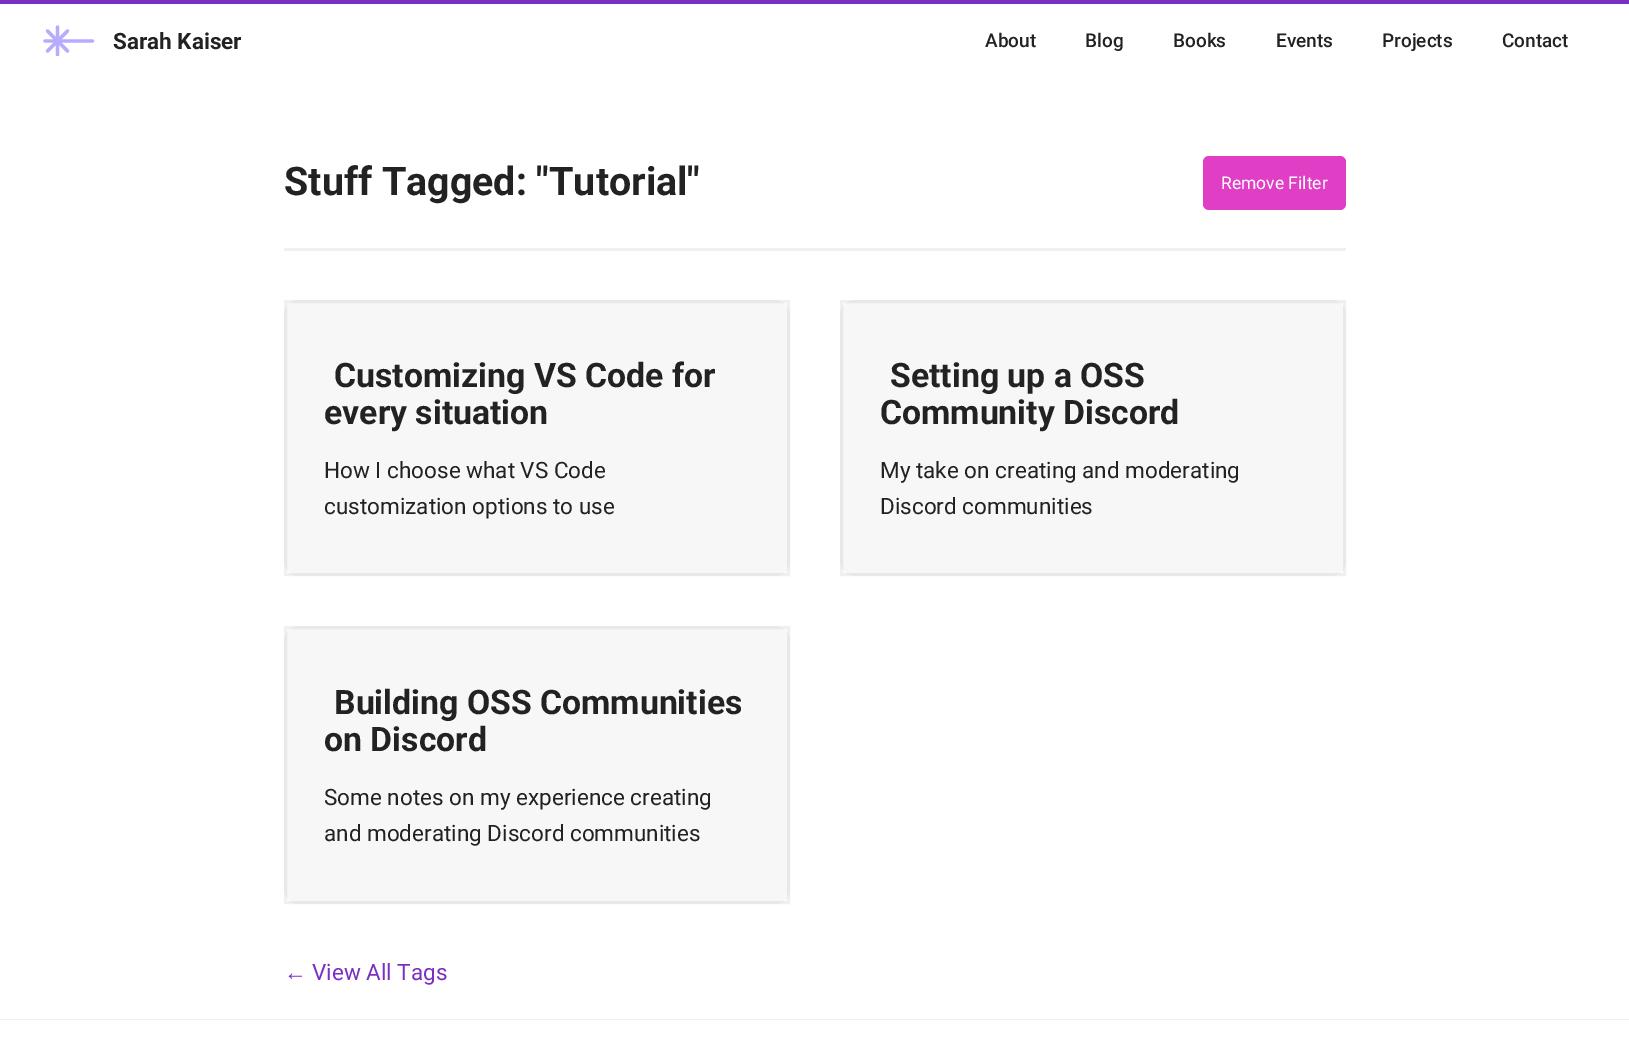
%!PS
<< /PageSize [1629 1057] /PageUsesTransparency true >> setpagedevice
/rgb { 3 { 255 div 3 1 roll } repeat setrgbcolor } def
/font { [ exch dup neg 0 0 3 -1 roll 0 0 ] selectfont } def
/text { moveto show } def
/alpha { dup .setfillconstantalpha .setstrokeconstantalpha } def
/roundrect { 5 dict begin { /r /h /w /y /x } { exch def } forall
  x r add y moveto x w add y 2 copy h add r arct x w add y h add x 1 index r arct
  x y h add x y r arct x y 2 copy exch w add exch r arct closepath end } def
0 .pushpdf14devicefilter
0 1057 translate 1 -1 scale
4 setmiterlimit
255 255 255 rgb
0 0 1629 1057 rectfill
123 47 194 rgb
0 0 1629 4 rectfill
181 172 254 rgb
3.2 setlinewidth
1 setlinecap
47.5 31 moveto 20 20 rlineto stroke
67.5 31 moveto -20 20 rlineto stroke
45 41 moveto 47.5 0 rlineto stroke
gsave
38 25 62 31 rectclip
57.5 27 moveto 0 28 rlineto stroke
grestore
240 240 240 rgb
284 248 1062 3 rectfill
224 62 197 rgb
1203 156 143 54 6 roundrect fill
247 247 247 rgb
284 300 506 276 15 roundrect fill
0.06 alpha
0 0 0 rgb
3 setlinewidth
0 setlinecap
285.5 301.5 503 273 rectstroke
1 alpha
247 247 247 rgb
840 300 506 276 15 roundrect fill
0.06 alpha
0 0 0 rgb
841.5 301.5 503 273 rectstroke
1 alpha
247 247 247 rgb
284 626 506 278 15 roundrect fill
0.06 alpha
0 0 0 rgb
285.5 627.5 503 275 rectstroke
1 alpha
240 240 240 rgb
0 1019 1629 1 rectfill
/Roboto-Bold 22.5 font
34 34 34 rgb
(Sarah Kaiser) 113 49 text
/Roboto-Medium 19 font
(About) 985 47 text
(Blog) 1085 47 text
(Books) 1173 47 text
(Events) 1276 47 text
(Projects) 1382 47 text
(Contact) 1502 47 text
/Roboto-Bold 39.4 font
(Stuff Tagged: "Tutorial") 284 195 text
/Roboto-Regular 17.5 font
255 255 255 rgb
(Remove Filter) 1221 189 text
/Roboto-Bold 33.75 font
34 34 34 rgb
(Customizing VS Code for) 334 387 text
(every situation) 324 424 text
/Roboto-Regular 22.5 font
(How I choose what VS Code) 324 478 text
(customization options to use) 324 514 text
/Roboto-Bold 33.75 font
(Setting up a OSS) 890 387 text
(Community Discord) 880 424 text
/Roboto-Regular 22.5 font
(My take on creating and moderating) 880 478 text
(Discord communities) 880 514 text
/Roboto-Bold 33.75 font
(Building OSS Communities) 334 714 text
(on Discord) 324 751 text
/Roboto-Regular 22.5 font
(Some notes on my experience creating) 324 805 text
(and moderating Discord communities) 324 841 text
/LiberationSans-Regular 22.5 font
123 47 194 rgb
(←) 284 980 text
/Roboto-Regular 22.5 font
(View All Tags) 312 980 text
.poppdf14devicefilter showpage
